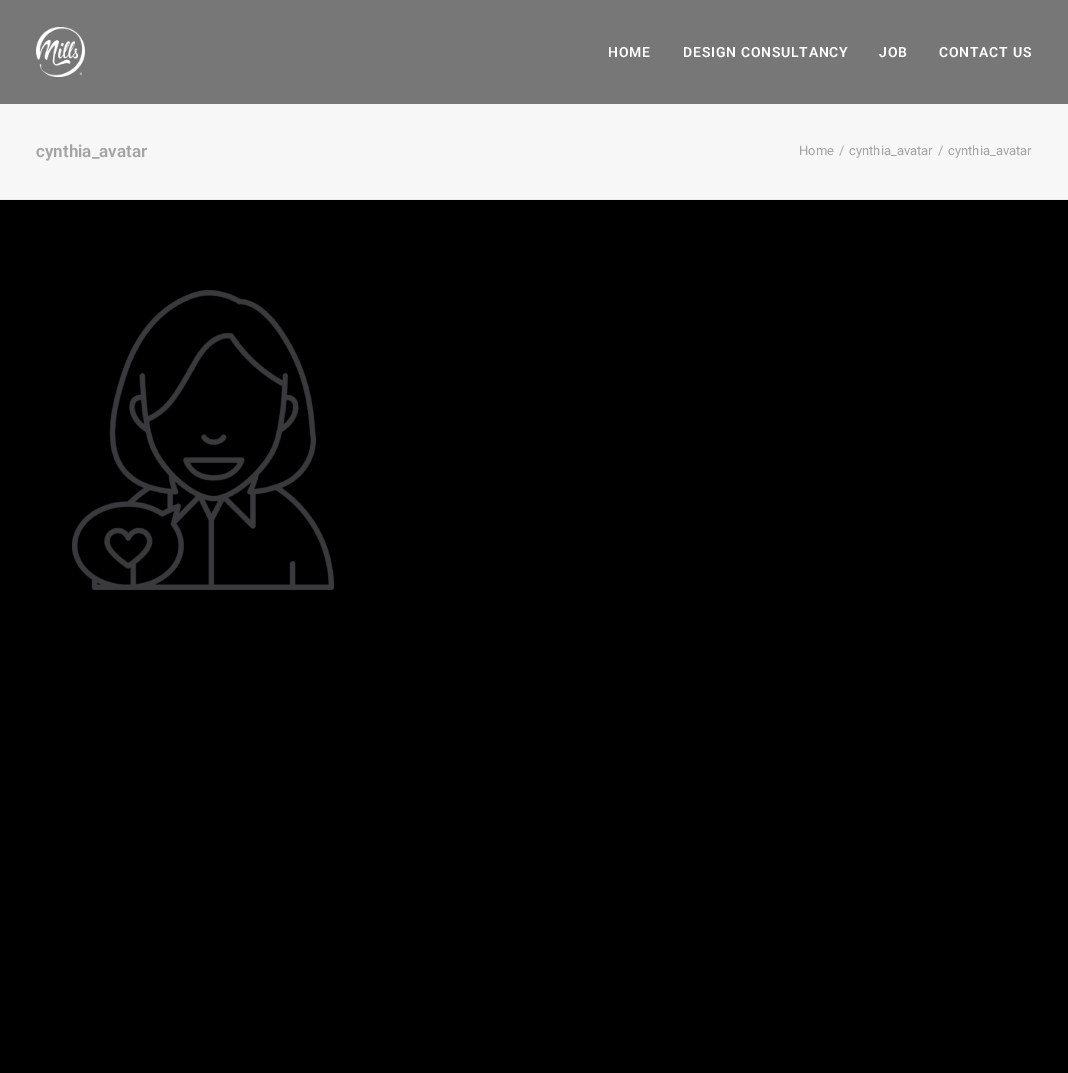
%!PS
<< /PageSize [1068 1073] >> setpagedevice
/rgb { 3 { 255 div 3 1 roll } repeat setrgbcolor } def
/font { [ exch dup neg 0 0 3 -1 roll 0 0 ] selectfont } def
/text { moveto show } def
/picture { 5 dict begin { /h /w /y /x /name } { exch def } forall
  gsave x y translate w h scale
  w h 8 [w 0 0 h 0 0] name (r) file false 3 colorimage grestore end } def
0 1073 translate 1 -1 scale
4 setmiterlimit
0 0 0 rgb
0 0 1068 1073 rectfill
119 119 119 rgb
0 0 1068 104 rectfill
(img_01.rgb) 36 27 49 50 picture
247 247 247 rgb
0 104 1068 95 rectfill
234 234 234 rgb
0 199 1068 1 rectfill
(img_02.rgb) 72 290 262 300 picture
/Roboto-SemiBold 14 font
255 255 255 rgb
608 57 moveto 0.75 0 (HOME) ashow
683 57 moveto 0.75 0 (DESIGN CONSULTANCY) ashow
879 57 moveto 0.75 0 (JOB) ashow
939 57 moveto 0.75 0 (CONTACT US) ashow
/Roboto-SemiBold 17 font
164 164 164 rgb
(cynthia_avatar) 36 157 text
/Roboto-Regular 13 font
(Home) 799 155 text
(/) 839 155 text
(cynthia_avatar) 849 155 text
(/) 938 155 text
(cynthia_avatar) 948 155 text
showpage
